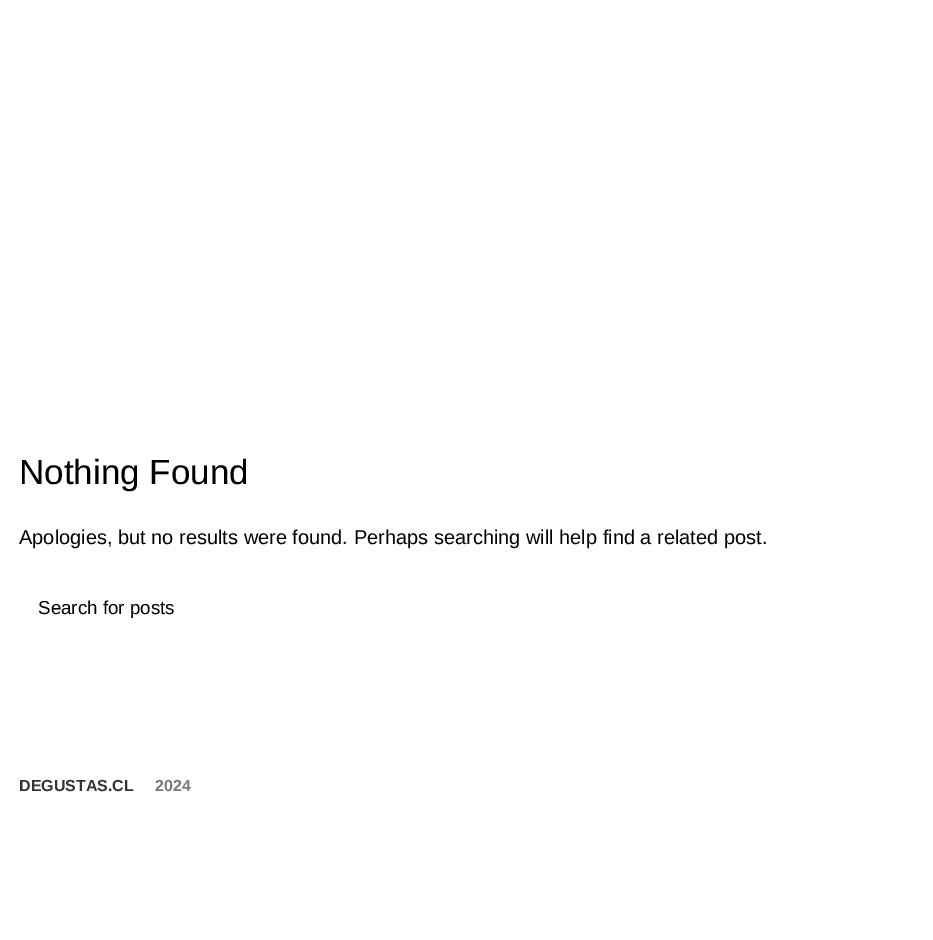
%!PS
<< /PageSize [933 940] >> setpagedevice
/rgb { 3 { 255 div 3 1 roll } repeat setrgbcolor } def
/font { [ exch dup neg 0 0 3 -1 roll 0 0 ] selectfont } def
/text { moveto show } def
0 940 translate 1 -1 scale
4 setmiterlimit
255 255 255 rgb
0 0 933 940 rectfill
/LiberationSans-Regular 35 font
0 0 0 rgb
(Nothing Found) 19 484 text
/LiberationSans-Regular 20 font
(Apologies, but no results were found. Perhaps searching will help find a related post.) 19 544 text
/LiberationSans-Regular 18.75 font
(Search for posts) 38 614 text
/LiberationSans-Bold 16 font
51 51 51 rgb
(DEGUSTAS.CL) 19 791 text
119 119 119 rgb
(2024) 155 791 text
showpage
